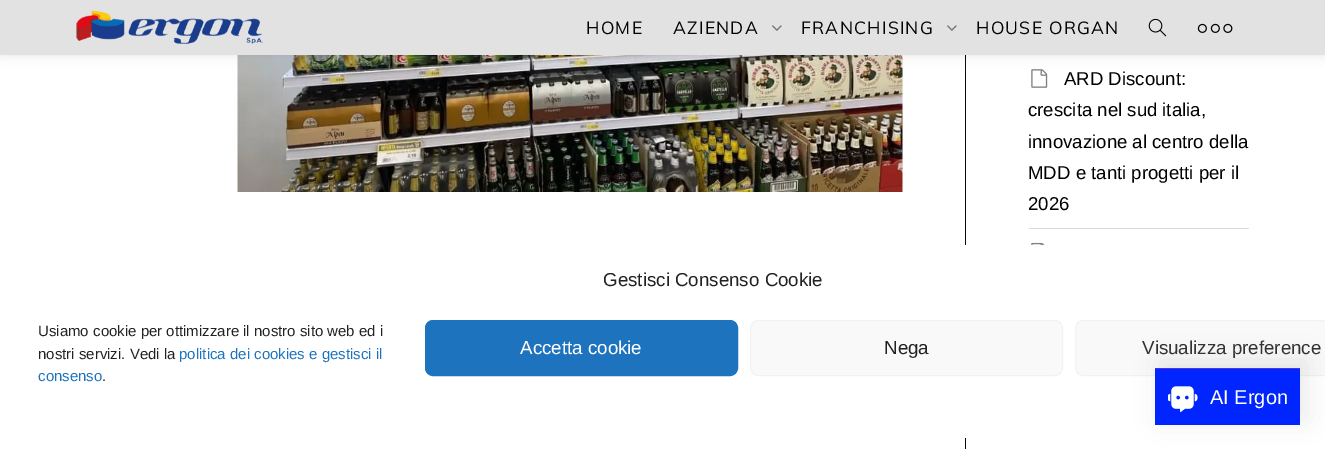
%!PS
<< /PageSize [1325 449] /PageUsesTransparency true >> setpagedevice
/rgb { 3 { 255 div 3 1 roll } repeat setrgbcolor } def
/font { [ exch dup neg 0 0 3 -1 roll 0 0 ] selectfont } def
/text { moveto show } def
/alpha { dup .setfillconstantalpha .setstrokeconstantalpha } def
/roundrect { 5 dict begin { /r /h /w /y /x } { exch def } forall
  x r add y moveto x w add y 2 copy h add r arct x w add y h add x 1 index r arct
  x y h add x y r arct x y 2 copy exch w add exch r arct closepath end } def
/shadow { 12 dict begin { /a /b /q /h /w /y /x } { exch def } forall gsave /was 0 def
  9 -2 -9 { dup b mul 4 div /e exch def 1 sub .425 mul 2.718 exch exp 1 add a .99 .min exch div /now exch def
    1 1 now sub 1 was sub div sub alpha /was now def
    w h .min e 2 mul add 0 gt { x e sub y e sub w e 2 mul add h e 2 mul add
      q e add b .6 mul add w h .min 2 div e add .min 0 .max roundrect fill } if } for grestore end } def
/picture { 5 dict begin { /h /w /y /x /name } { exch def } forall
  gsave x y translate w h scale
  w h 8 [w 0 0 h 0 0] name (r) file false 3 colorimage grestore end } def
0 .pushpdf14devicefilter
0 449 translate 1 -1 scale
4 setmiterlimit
255 255 255 rgb
0 0 1325 449 rectfill
10 10 10 rgb
965 55 1 394 rectfill
(img_05.rgb) 237 55 666 137 picture
(img_06.rgb) 1031 69 17 19 picture
0 0 0 rgb
0 0 1325 55 0 6 0.1 shadow
226 226 226 rgb
0 0 1325 55 rectfill
(img_01.rgb) 76 10 187 34 picture
(img_02.rgb) 772 25 10 6 picture
(img_02.rgb) 947 25 10 6 picture
(img_03.rgb) 1148 18 19 19 picture
(img_04.rgb) 1197 23 36 10 picture
219 219 219 rgb
1029 228 220 1 rectfill
(img_07.rgb) 1031 242 14 3 picture
255 255 255 rgb
13 245 1300 193 15 roundrect fill
30 115 190 rgb
425.5 320.5 312 55 7.5 roundrect gsave fill grestore
stroke
249 249 249 rgb
750.5 320.5 312 55 7.5 roundrect gsave fill grestore
242 242 242 rgb
stroke
249 249 249 rgb
1075.5 320.5 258 55 7.5 roundrect gsave fill grestore
242 242 242 rgb
stroke
0 0 0 rgb
1161 361 145 58 0 12.5 0.08 shadow
0 37 255 rgb
1155 369 145 56 rectfill
79 50 230 rgb
1155 368 145 1 rectfill
(img_08.rgb) 1168 386 30 27 picture
/Muli-Regular 17.5 font
0 0 0 rgb
586 34 moveto 1.25 0 (HOME) ashow
673 34 moveto 1.25 0 (AZIENDA) ashow
801 34 moveto 1.25 0 (FRANCHISING) ashow
976 34 moveto 1.25 0 (HOUSE ORGAN) ashow
/LiberationSans-Regular 18.6 font
(ARD Discount:) 1064 85 text
(crescita nel sud italia,) 1028 116 text
(innovazione al centro della) 1028 148 text
(MDD e tanti progetti per il) 1028 179 text
(2026) 1028 210 text
/LiberationSans-Regular 18.75 font
34 34 34 rgb
(Gestisci Consenso Cookie) 603 286 text
/LiberationSans-Regular 15 font
(Usiamo cookie per ottimizzare il nostro sito web ed i) 38 336 text
(nostri servizi. Vedi la) 38 359 text
30 115 190 rgb
(politica dei cookies e gestisci il) 179 359 text
(consenso) 38 381 text
34 34 34 rgb
(.) 102 381 text
/LiberationSans-Regular 18.75 font
255 255 255 rgb
(Accetta cookie) 520 354 text
34 34 34 rgb
(Nega) 884 354 text
51 51 51 rgb
(Visualizza preference) 1142 354 text
/LiberationSans-Regular 20 font
255 255 255 rgb
(AI Ergon) 1210 404 text
.poppdf14devicefilter showpage
